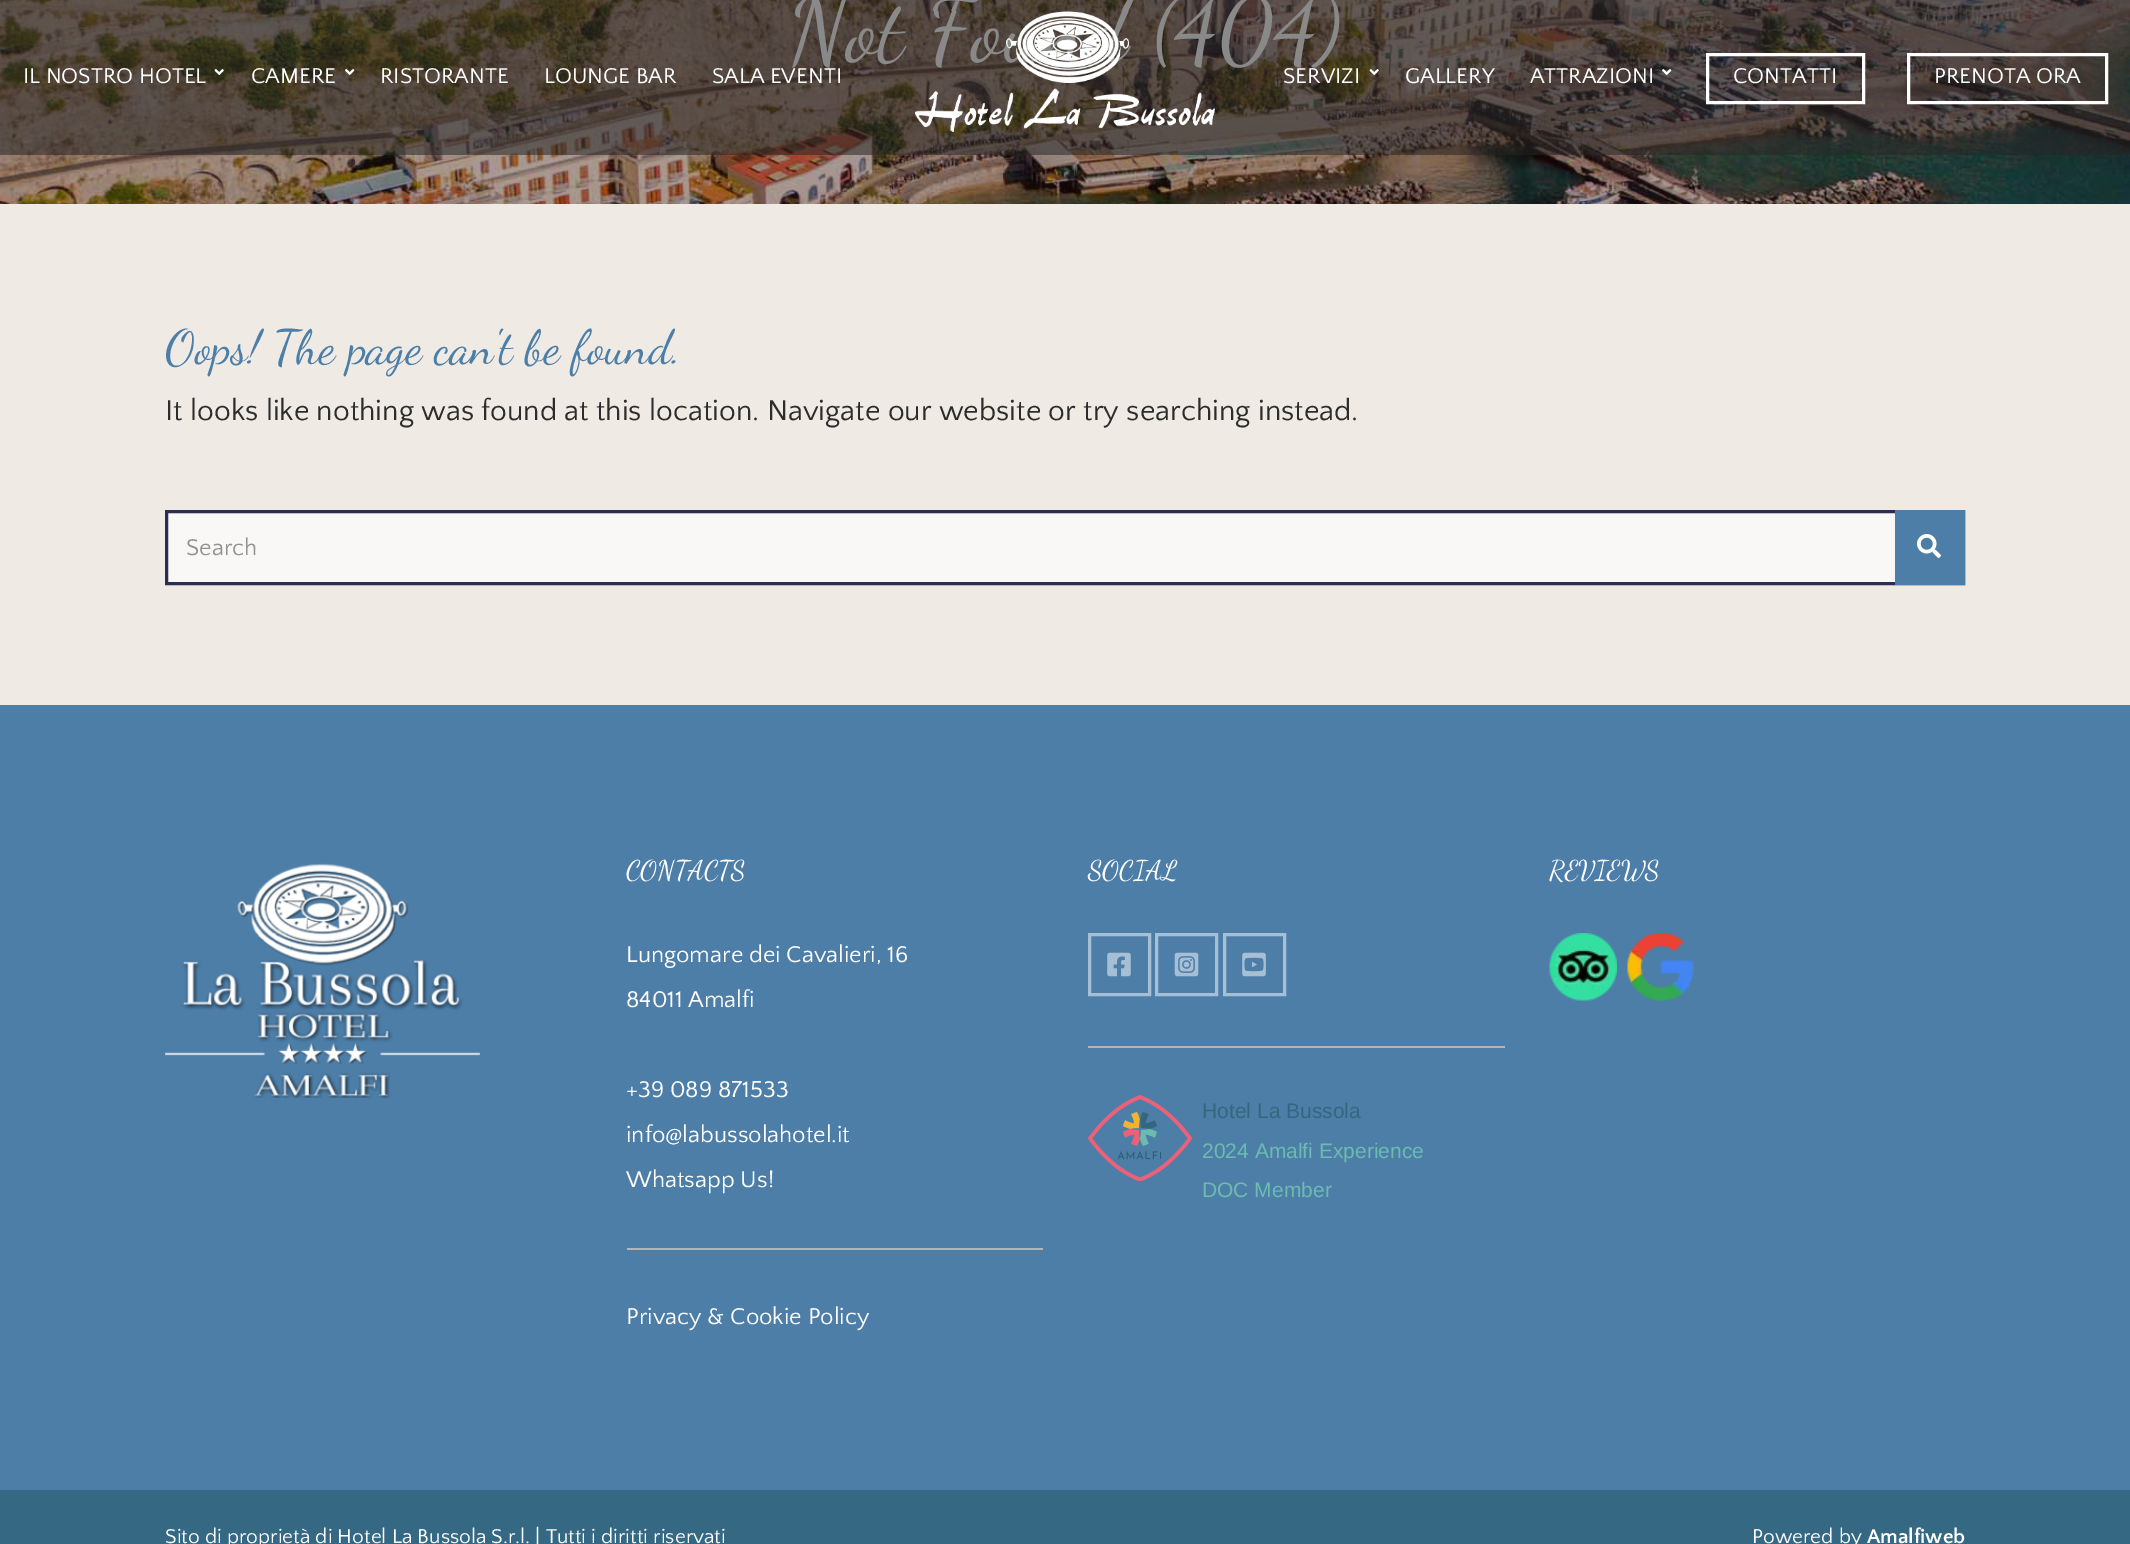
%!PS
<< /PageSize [2130 1544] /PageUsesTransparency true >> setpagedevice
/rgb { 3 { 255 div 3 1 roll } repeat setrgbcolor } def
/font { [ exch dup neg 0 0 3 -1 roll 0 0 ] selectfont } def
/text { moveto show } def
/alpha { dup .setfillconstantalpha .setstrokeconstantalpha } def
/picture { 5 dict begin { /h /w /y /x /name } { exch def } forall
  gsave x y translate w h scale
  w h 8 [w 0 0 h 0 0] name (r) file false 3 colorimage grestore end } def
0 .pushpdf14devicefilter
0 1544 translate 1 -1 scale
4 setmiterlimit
239 235 228 rgb
0 0 2130 1544 rectfill
(img_01.rgb) 0 0 2130 204 picture
250 248 246 rgb
168 513 1727 69 rectfill
43 45 83 rgb
3 setlinewidth
166.5 511.5 1797 72 rectstroke
77 126 168 rgb
1895 510 70 75 rectfill
(img_02.rgb) 1917 534 24 24 picture
0 705 2130 785 rectfill
(img_08.rgb) 165 863 315 235 picture
181 181 181 rgb
627 1248 416 2 rectfill
1088 1046 417 2 rectfill
166 191 212 rgb
1089.5 934.5 60 60 rectstroke
(img_09.rgb) 1107 952 24 25 picture
1156.5 934.5 60 60 rectstroke
(img_10.rgb) 1174 952 25 25 picture
1224.5 934.5 60 60 rectstroke
(img_11.rgb) 1242 952 24 25 picture
(img_12.rgb) 1088 1095 105 86 picture
(img_13.rgb) 1549 933 68 68 picture
(img_14.rgb) 1627 933 67 68 picture
53 104 130 rgb
0 1490 2130 54 rectfill
/DancingScript-Regular 90 font
255 255 255 rgb
(Not Found \(404\)) 788 60 text
/DancingScript-Regular 48 font
77 126 168 rgb
(Oops! The page can't be found.) 165 363 text
/QuattrocentoSans-Regular 30 font
44 44 44 rgb
(It looks like nothing was found at this location. Navigate our website or try searching instead.) 165 420 text
/QuattrocentoSans-Regular 24 font
147 146 145 rgb
(Search) 186 555 text
0.54 alpha
37 37 37 rgb
0 0 2130 155 rectfill
/QuattrocentoSans-Regular 22.5 font
1 alpha
255 255 255 rgb
(IL NOSTRO HOTEL) 23 83 text
(img_03.rgb) 214 69 10 6 picture
(CAMERE) 251 83 text
(img_04.rgb) 345 69 10 6 picture
(RISTORANTE) 380 83 text
(LOUNGE BAR) 544 83 text
(SALA EVENTI) 712 83 text
(img_05.rgb) 915 11 300 121 picture
(SERVIZI) 1283 83 text
(img_06.rgb) 1369 69 10 6 picture
(GALLERY) 1405 83 text
(ATTRAZIONI) 1530 83 text
(img_07.rgb) 1662 69 10 6 picture
1707.5 54.5 156 48 rectstroke
(CONTATTI) 1733 83 text
1908.5 54.5 198 48 rectstroke
(PRENOTA ORA) 1934 83 text
/DancingScript-Regular 27 font
(CONTACTS) 626 879 text
/QuattrocentoSans-Regular 24 font
(Lungomare dei Cavalieri, 16) 626 962 text
(84011 Amalfi) 626 1007 text
(+39 089 871533) 626 1097 text
(info@labussolahotel.it) 626 1142 text
(Whatsapp Us!) 626 1187 text
(Privacy & Cookie Policy) 626 1324 text
/DancingScript-Regular 27 font
(SOCIAL) 1088 879 text
/LiberationSans-Regular 21 font
52 102 127 rgb
(Hotel La Bussola) 1202 1118 text
107 187 174 rgb
(2024 Amalfi Experience) 1202 1158 text
(DOC Member) 1202 1197 text
/DancingScript-Regular 27 font
255 255 255 rgb
(REVIEWS) 1549 879 text
/QuattrocentoSans-Regular 21 font
(Sito di proprietà di Hotel La Bussola S.r.l. | Tutti i diritti riservati) 165 1543 text
(Powered by) 1752 1543 text
/QuattrocentoSans-Bold 21 font
(Amalfiweb) 1867 1543 text
.poppdf14devicefilter showpage
